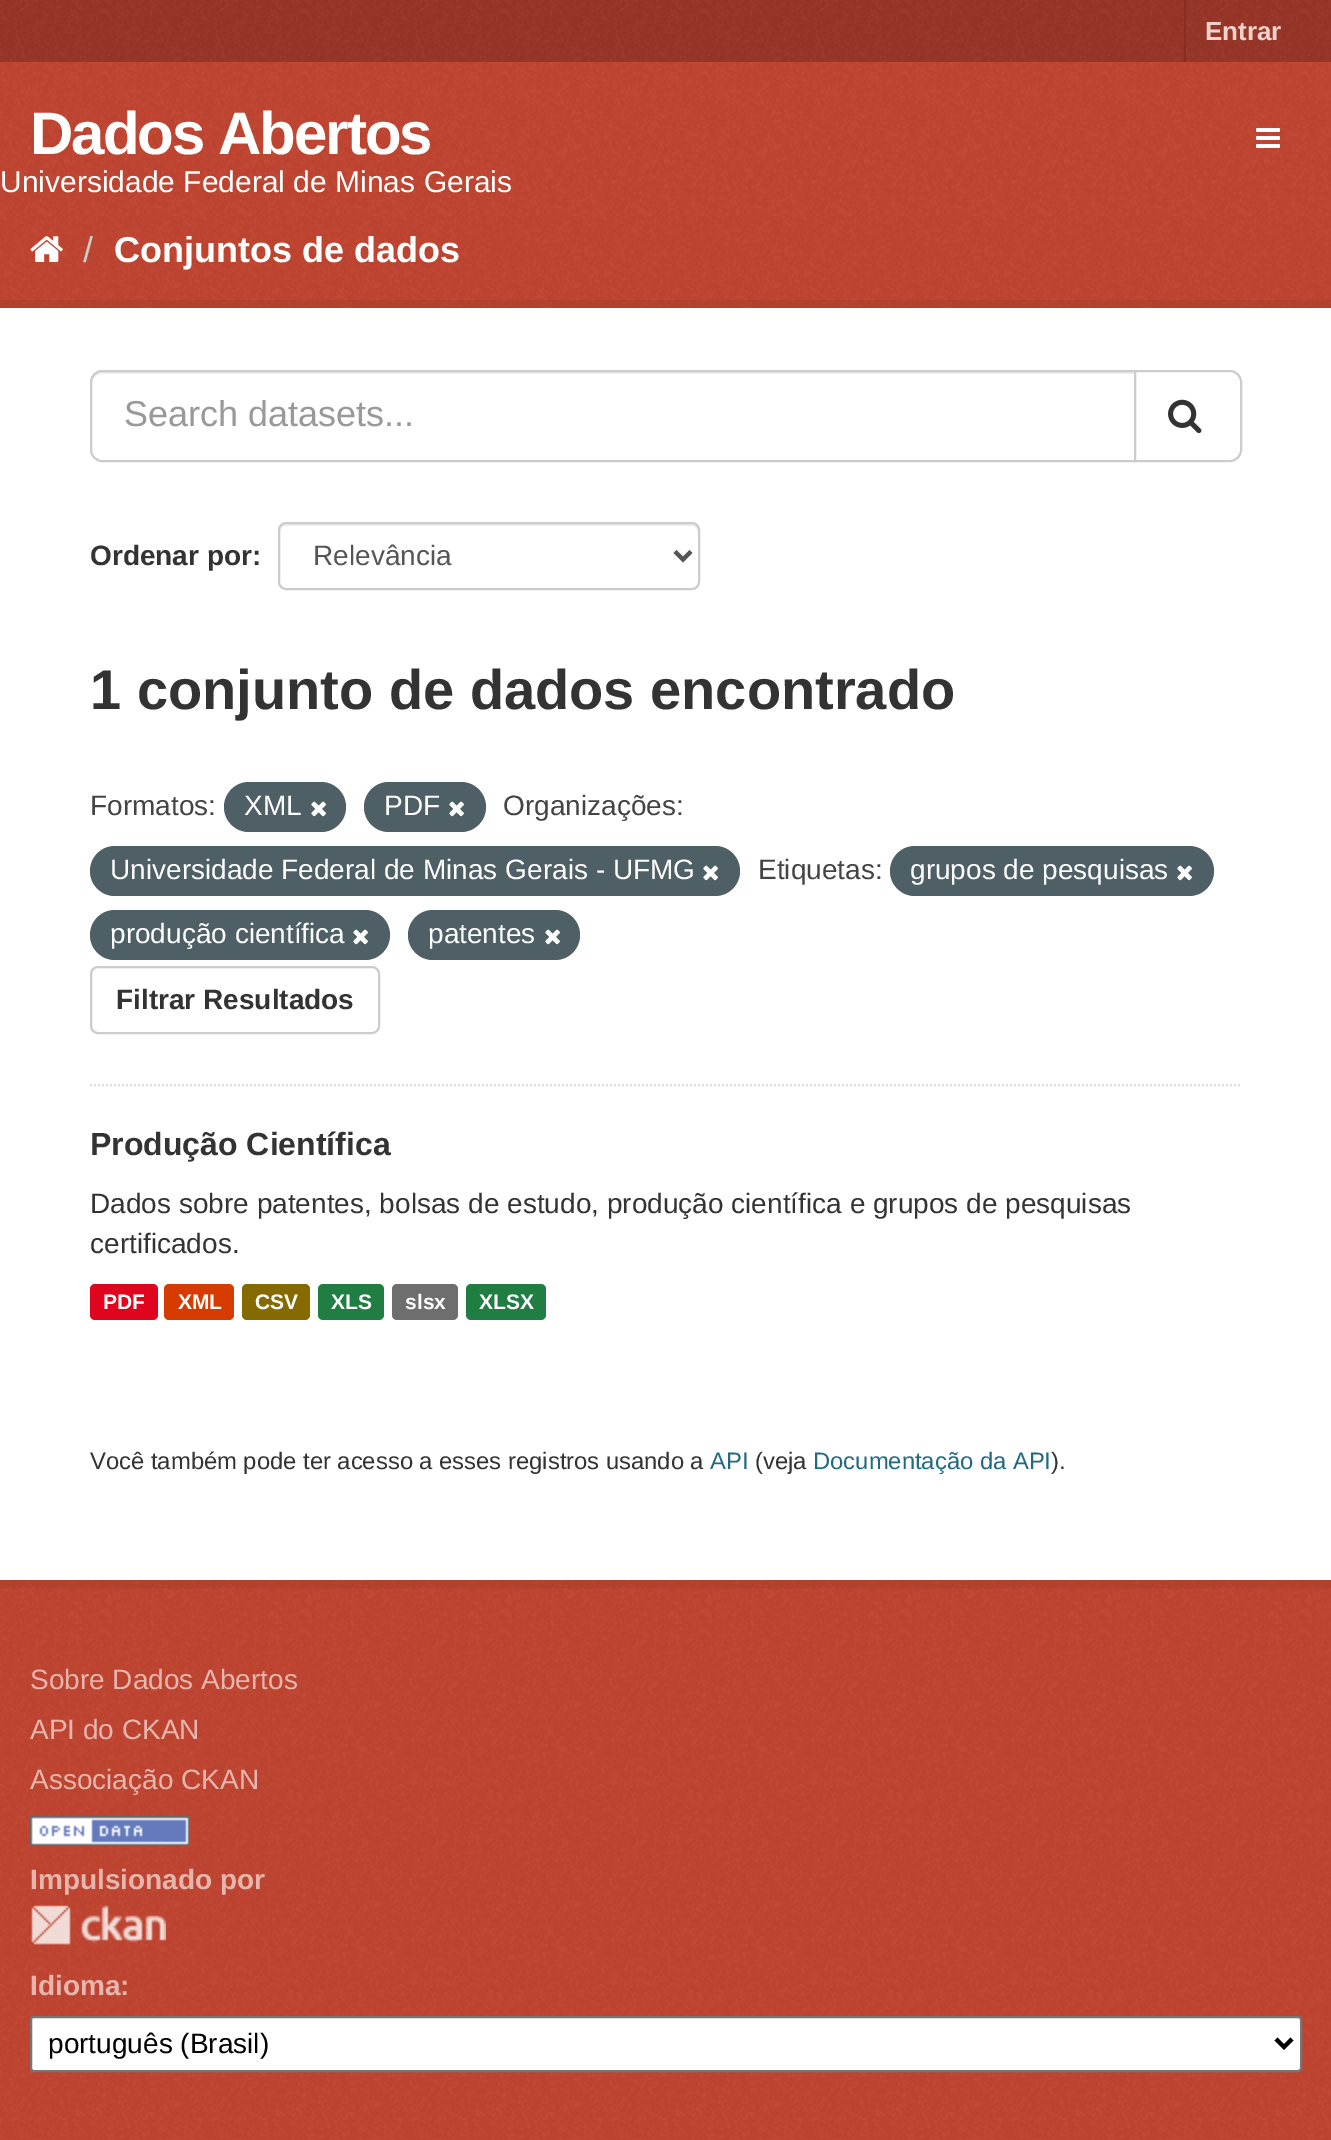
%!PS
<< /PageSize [1331 2140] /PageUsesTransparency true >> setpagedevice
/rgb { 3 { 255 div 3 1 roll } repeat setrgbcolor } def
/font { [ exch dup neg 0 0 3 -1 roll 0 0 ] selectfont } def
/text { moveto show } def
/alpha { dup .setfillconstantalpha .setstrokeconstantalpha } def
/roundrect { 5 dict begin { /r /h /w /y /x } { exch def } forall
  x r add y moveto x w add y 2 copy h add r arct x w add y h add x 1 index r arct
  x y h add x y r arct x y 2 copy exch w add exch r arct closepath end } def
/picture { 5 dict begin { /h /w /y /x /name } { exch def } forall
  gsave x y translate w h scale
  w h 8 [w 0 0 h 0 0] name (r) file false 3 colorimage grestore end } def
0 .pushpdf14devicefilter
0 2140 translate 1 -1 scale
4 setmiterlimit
193 69 49 rgb
0 0 1331 2140 rectfill
(img_01.rgb) 0 216 1331 1924 picture
152 54 39 rgb
0 0 1331 62 rectfill
(img_02.rgb) 0 0 1331 62 picture
132 47 34 rgb
1184 0 2 62 rectfill
(img_03.rgb) 0 62 1331 154 picture
(img_04.rgb) 1256 128 24 20 picture
(img_05.rgb) 30 236 33 26 picture
0.05 alpha
0 0 0 rgb
8 setlinewidth
-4 304 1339 1280 rectstroke
1 alpha
255 255 255 rgb
0 308 1331 1272 rectfill
221 221 221 rgb
2 setlinewidth
[2 2] 0 setdash
90 1085 moveto 1152 0 rlineto stroke
236 236 236 rgb
102 374 moveto 1032 0 rlineto 0 -2 rlineto -1032 0 rlineto -6 0 -10 4 -10 10 rcurveto 0 2 rlineto 0 -6 4 -10 10 -10 rcurveto closepath fill
204 204 204 rgb
[] 0 setdash
102 371 moveto 1033 0 rlineto 0 90 rlineto -1033 0 rlineto -6 0 -11 -5 -11 -11 rcurveto 0 -68 rlineto 0 -6 5 -11 11 -11 rcurveto closepath stroke
255 255 255 rgb
1135 371 moveto 95 0 rlineto 6 0 11 5 11 11 rcurveto 0 68 rlineto 0 6 -5 11 -11 11 rcurveto -95 0 rlineto closepath gsave fill grestore
204 204 204 rgb
stroke
(img_06.rgb) 1168 399 34 35 picture
236 236 236 rgb
286 526 moveto 406 0 rlineto 3 0 6 3 6 6 rcurveto 0 -2 rlineto 0 -3 -3 -6 -6 -6 rcurveto -406 0 rlineto -3 0 -6 3 -6 6 rcurveto 0 2 rlineto 0 -3 3 -6 6 -6 rcurveto closepath fill
204 204 204 rgb
279 523 420 66 7 roundrect stroke
85 85 85 rgb
4 setlinewidth
675 551.5 moveto 8 8 rlineto 8 -8 rlineto stroke
78 95 101 rgb
224 782 122 50 25 roundrect fill
(img_07.rgb) 311 801 15 16 picture
364 782 122 50 25 roundrect fill
(img_07.rgb) 449 801 15 16 picture
90 846 650 50 25 roundrect fill
(img_07.rgb) 703 865 15 16 picture
890 846 324 50 25 roundrect fill
(img_07.rgb) 1177 865 15 16 picture
90 910 300 50 25 roundrect fill
(img_07.rgb) 353 929 15 16 picture
408 910 172 50 25 roundrect fill
(img_07.rgb) 545 929 15 16 picture
204 204 204 rgb
2 setlinewidth
91 967 288 66 7 roundrect stroke
224 5 30 rgb
90 1284 68 36 5 roundrect fill
214 59 0 rgb
164 1284 70 36 5 roundrect fill
133 106 0 rgb
242 1284 68 36 5 roundrect fill
32 126 66 rgb
318 1284 66 36 5 roundrect fill
110 110 110 rgb
392 1284 66 36 5 roundrect fill
32 126 66 rgb
466 1284 80 36 5 roundrect fill
193 69 49 rgb
0 1620 1331 492 rectfill
(img_08.rgb) 0 1620 1331 492 picture
(img_09.rgb) 30 1816 160 30 picture
(img_10.rgb) 31 1905 135 40 picture
255 255 255 rgb
31 2017 1270 54 3 roundrect gsave fill grestore
118 118 118 rgb
stroke
0 0 0 rgb
4 setlinewidth
1276 2039 moveto 8 8 rlineto 8 -8 rlineto stroke
/LiberationSans-Bold 26 font
240 209 204 rgb
(Entrar) 1205 40 text
/LiberationSans-Bold 60 font
255 255 255 rgb
30 154 moveto -2 0 (Dados Abertos) ashow
/LiberationSans-Regular 30 font
(Universidade Federal de Minas Gerais) 0 192 text
/LiberationSans-Regular 36 font
204 204 204 rgb
(/) 83 262 text
/LiberationSans-Bold 36 font
255 255 255 rgb
(Conjuntos de dados) 114 262 text
/LiberationSans-Regular 36 font
153 153 153 rgb
(Search datasets...) 124 426 text
/LiberationSans-Bold 28 font
51 51 51 rgb
(Ordenar por:) 90 565 text
/LiberationSans-Regular 28 font
85 85 85 rgb
(Relevância) 313 565 text
/LiberationSans-Bold 56 font
51 51 51 rgb
(1 conjunto de dados encontrado) 90 709 text
/LiberationSans-Regular 28 font
68 68 68 rgb
(Formatos:) 90 815 text
255 255 255 rgb
(XML) 244 815 text
(PDF) 384 815 text
68 68 68 rgb
(Organizações:) 503 815 text
255 255 255 rgb
(Universidade Federal de Minas Gerais - UFMG) 110 879 text
68 68 68 rgb
(Etiquetas:) 758 879 text
255 255 255 rgb
(grupos de pesquisas) 910 879 text
(produção científica) 110 943 text
(patentes) 428 943 text
/LiberationSans-Bold 28 font
51 51 51 rgb
(Filtrar Resultados) 116 1009 text
/LiberationSans-Bold 32 font
(Produção Científica) 90 1155 text
/LiberationSans-Regular 28 font
(Dados sobre patentes, bolsas de estudo, produção científica e grupos de pesquisas) 90 1213 text
(certificados.) 90 1253 text
/LiberationSans-Bold 21 font
255 255 255 rgb
(PDF) 103 1309 text
(XML) 178 1309 text
(CSV) 255 1309 text
(XLS) 331 1309 text
(slsx) 405 1309 text
(XLSX) 479 1309 text
/LiberationSans-Regular 23.8 font
51 51 51 rgb
(Você também pode ter acesso a esses registros usando a) 90 1469 text
32 107 130 rgb
(API) 710 1469 text
51 51 51 rgb
(\(veja) 755 1469 text
32 107 130 rgb
(Documentação da API) 813 1469 text
51 51 51 rgb
(\).) 1051 1469 text
/LiberationSans-Regular 28 font
230 181 173 rgb
(Sobre Dados Abertos) 30 1689 text
(API do CKAN) 30 1739 text
(Associação CKAN) 30 1789 text
/LiberationSans-Bold 28 font
(Impulsionado por) 30 1889 text
(Idioma:) 30 1995 text
/LiberationSans-Regular 28 font
0 0 0 rgb
(português \(Brasil\)) 48 2053 text
.poppdf14devicefilter showpage
